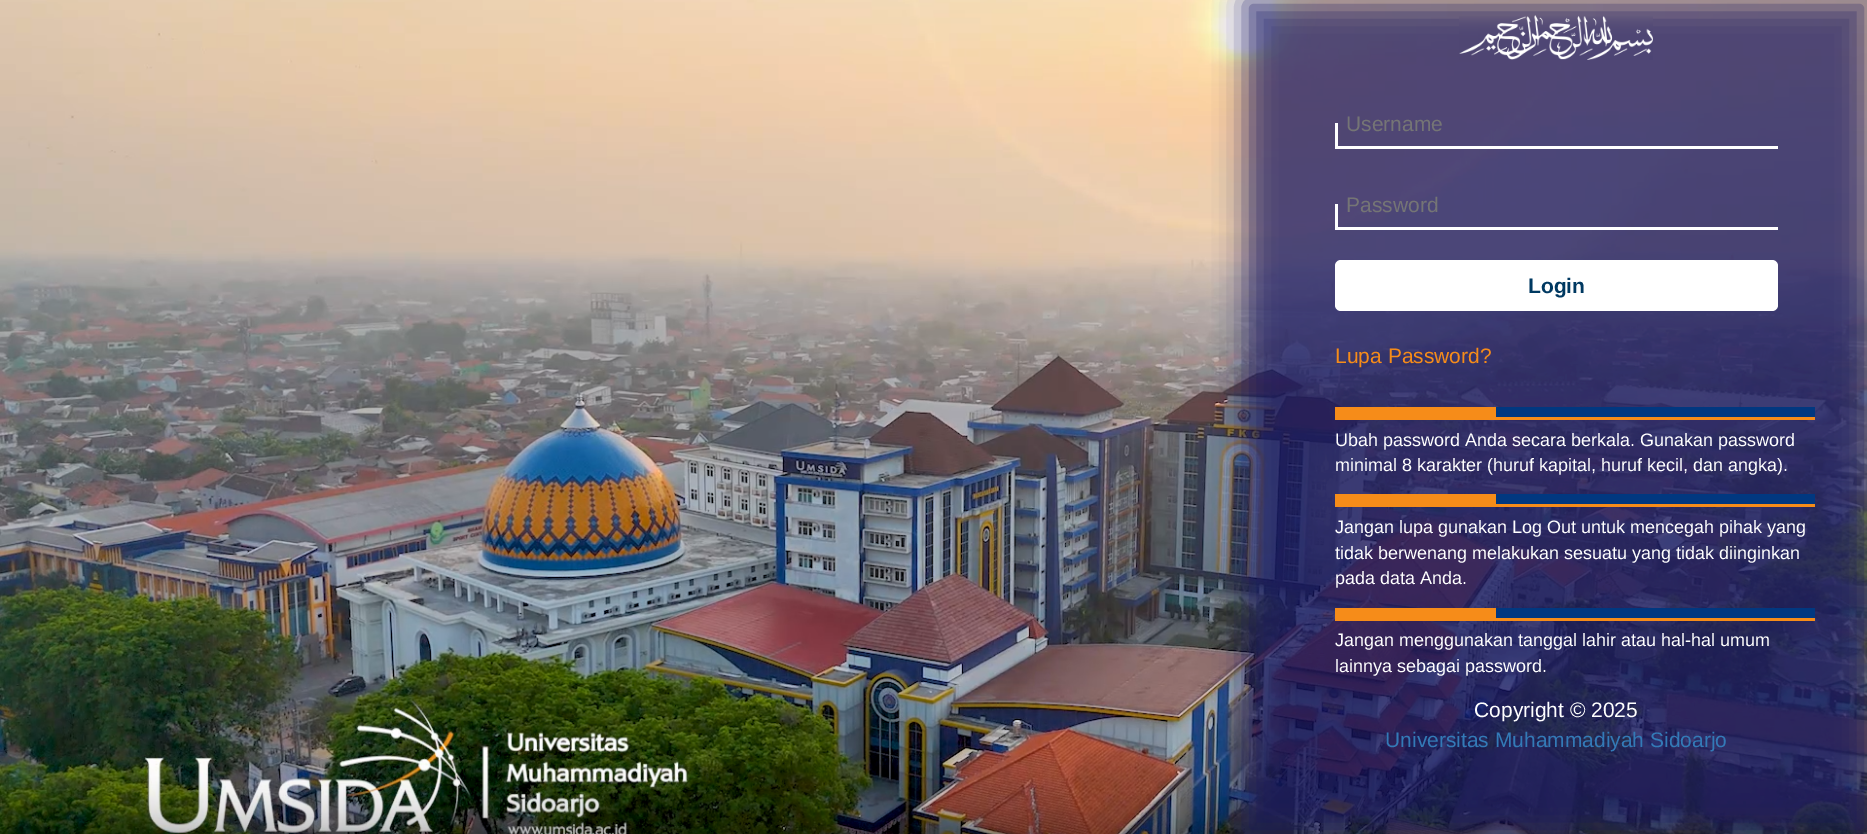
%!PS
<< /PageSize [1867 834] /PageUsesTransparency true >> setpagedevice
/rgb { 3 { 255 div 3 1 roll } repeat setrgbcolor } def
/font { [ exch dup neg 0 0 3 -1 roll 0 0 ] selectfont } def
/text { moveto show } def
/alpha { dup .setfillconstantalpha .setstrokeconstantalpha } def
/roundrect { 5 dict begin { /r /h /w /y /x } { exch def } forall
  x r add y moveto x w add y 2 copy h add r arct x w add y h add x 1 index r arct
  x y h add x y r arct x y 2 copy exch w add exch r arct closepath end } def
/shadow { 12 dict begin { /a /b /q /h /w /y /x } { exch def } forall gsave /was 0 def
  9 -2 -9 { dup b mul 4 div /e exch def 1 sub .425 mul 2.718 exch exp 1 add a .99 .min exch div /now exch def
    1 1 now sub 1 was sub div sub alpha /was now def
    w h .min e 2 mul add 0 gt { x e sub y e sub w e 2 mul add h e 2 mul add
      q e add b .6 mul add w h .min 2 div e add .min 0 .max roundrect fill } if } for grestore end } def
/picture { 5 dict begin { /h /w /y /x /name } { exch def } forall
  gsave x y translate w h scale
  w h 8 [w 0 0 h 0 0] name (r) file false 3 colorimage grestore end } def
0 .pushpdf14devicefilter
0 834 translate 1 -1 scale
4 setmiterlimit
255 255 255 rgb
0 0 1867 834 rectfill
(img_01.rgb) 0 0 1867 834 picture
19 19 95 rgb
1245 0 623 834 0 15 0.74 shadow
(img_02.rgb) 1459 15 194 45 picture
255 255 255 rgb
1335 146 443 3 rectfill
1335 123 3 26 rectfill
1335 227 443 3 rectfill
1335 204 3 26 rectfill
1335 260 443 51 6 roundrect fill
246 140 25 rgb
1335 407 161 10 rectfill
1 56 128 rgb
1496 407 319 10 rectfill
246 140 25 rgb
1335 417 480 3 rectfill
1335 494 161 10 rectfill
1 56 128 rgb
1496 494 319 10 rectfill
246 140 25 rgb
1335 504 480 3 rectfill
1335 608 161 10 rectfill
1 56 128 rgb
1496 608 319 10 rectfill
246 140 25 rgb
1335 618 480 3 rectfill
/LiberationSans-Regular 21 font
117 117 117 rgb
(Username) 1346 131 text
(Password) 1346 212 text
/LiberationSans-Bold 21 font
0 57 97 rgb
(Login) 1528 293 text
/LiberationSans-Regular 21 font
246 140 25 rgb
(Lupa Password?) 1335 363 text
/LiberationSans-Regular 18 font
255 255 255 rgb
(Ubah password Anda secara berkala. Gunakan password) 1335 446 text
(minimal 8 karakter \(huruf kapital, huruf kecil, dan angka\).) 1335 471 text
(Jangan lupa gunakan Log Out untuk mencegah pihak yang) 1335 533 text
(tidak berwenang melakukan sesuatu yang tidak diinginkan) 1335 559 text
(pada data Anda.) 1335 584 text
(Jangan menggunakan tanggal lahir atau hal-hal umum) 1335 646 text
(lainnya sebagai password.) 1335 672 text
/LiberationSans-Regular 21 font
(Copyright © 2025) 1474 717 text
51 122 183 rgb
(Universitas Muhammadiyah Sidoarjo) 1385 747 text
.poppdf14devicefilter showpage
